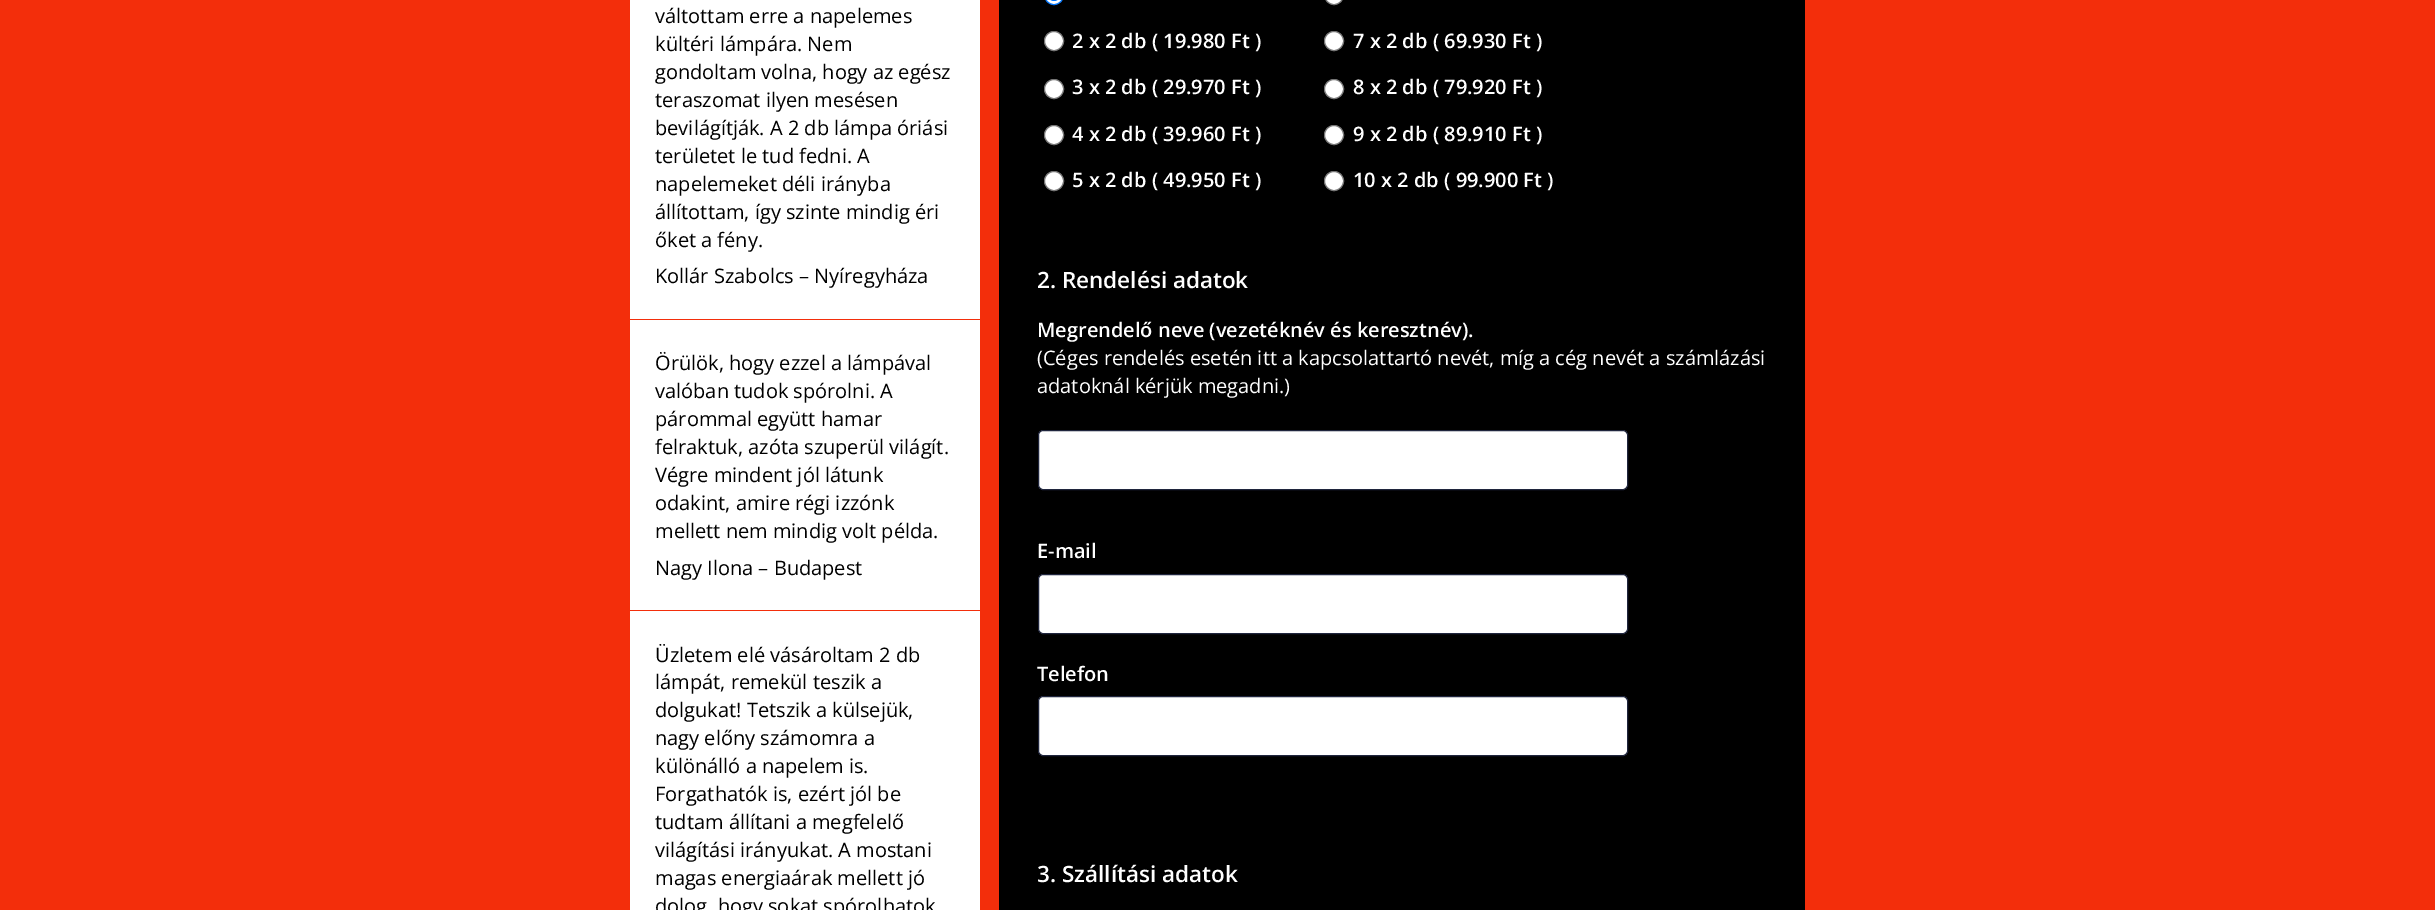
%!PS
<< /PageSize [2435 910] >> setpagedevice
/rgb { 3 { 255 div 3 1 roll } repeat setrgbcolor } def
/font { [ exch dup neg 0 0 3 -1 roll 0 0 ] selectfont } def
/text { moveto show } def
/circle { newpath 0 360 arc closepath } def
/roundrect { 5 dict begin { /r /h /w /y /x } { exch def } forall
  x r add y moveto x w add y 2 copy h add r arct x w add y h add x 1 index r arct
  x y h add x y r arct x y 2 copy exch w add exch r arct closepath end } def
0 910 translate 1 -1 scale
4 setmiterlimit
243 46 11 rgb
0 0 2435 910 rectfill
255 255 255 rgb
630 0 350 319 rectfill
630 320 350 290 rectfill
630 611 350 299 rectfill
0 0 0 rgb
999 0 806 910 rectfill
255 255 255 rgb
1044.5 -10.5 19 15 9.5 roundrect gsave fill grestore
0 117 255 rgb
stroke
1054 -5 6 circle fill
255 255 255 rgb
1054 41 9.5 circle gsave fill grestore
118 118 118 rgb
stroke
255 255 255 rgb
1054 89 9.5 circle gsave fill grestore
118 118 118 rgb
stroke
255 255 255 rgb
1054 135 9.5 circle gsave fill grestore
118 118 118 rgb
stroke
255 255 255 rgb
1054 181 9.5 circle gsave fill grestore
118 118 118 rgb
stroke
255 255 255 rgb
1324.5 -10.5 19 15 9.5 roundrect gsave fill grestore
118 118 118 rgb
stroke
255 255 255 rgb
1334 41 9.5 circle gsave fill grestore
118 118 118 rgb
stroke
255 255 255 rgb
1334 89 9.5 circle gsave fill grestore
118 118 118 rgb
stroke
255 255 255 rgb
1334 135 9.5 circle gsave fill grestore
118 118 118 rgb
stroke
255 255 255 rgb
1334 181 9.5 circle gsave fill grestore
118 118 118 rgb
stroke
255 255 255 rgb
1038.5 430.5 589 59 4.5 roundrect gsave fill grestore
31 37 61 rgb
stroke
255 255 255 rgb
1038.5 574.5 589 59 4.5 roundrect gsave fill grestore
31 37 61 rgb
stroke
255 255 255 rgb
1038.5 696.5 589 59 4.5 roundrect gsave fill grestore
31 37 61 rgb
stroke
/OpenSans-Regular 20 font
0 0 0 rgb
(váltottam erre a napelemes) 655 23 text
(kültéri lámpára. Nem) 655 51 text
(gondoltam volna, hogy az egész) 655 79 text
(teraszomat ilyen mesésen) 655 107 text
(bevilágítják. A 2 db lámpa óriási) 655 135 text
(területet le tud fedni. A) 655 163 text
(napelemeket déli irányba) 655 191 text
(állítottam, így szinte mindig éri) 655 219 text
(őket a fény.) 655 247 text
(Kollár Szabolcs – Nyíregyháza) 655 283 text
(Örülök, hogy ezzel a lámpával) 655 370 text
(valóban tudok spórolni. A) 655 398 text
(párommal együtt hamar) 655 426 text
(felraktuk, azóta szuperül világít.) 655 454 text
(Végre mindent jól látunk) 655 482 text
(odakint, amire régi izzónk) 655 510 text
(mellett nem mindig volt példa.) 655 538 text
(Nagy Ilona – Budapest) 655 575 text
(Üzletem elé vásároltam 2 db) 655 662 text
(lámpát, remekül teszik a) 655 689 text
(dolgukat! Tetszik a külsejük,) 655 717 text
(nagy előny számomra a) 655 745 text
(különálló a napelem is.) 655 773 text
(Forgathatók is, ezért jól be) 655 801 text
(tudtam állítani a megfelelő) 655 829 text
(világítási irányukat. A mostani) 655 857 text
(magas energiaárak mellett jó) 655 885 text
(dolog, hogy sokat spórolhatok) 655 913 text
/OpenSans-SemiBold 20 font
255 255 255 rgb
(2 x 2 db \( 19.980 Ft \)) 1072 48 text
(3 x 2 db \( 29.970 Ft \)) 1072 94 text
(4 x 2 db \( 39.960 Ft \)) 1072 141 text
(5 x 2 db \( 49.950 Ft \)) 1072 187 text
(7 x 2 db \( 69.930 Ft \)) 1353 48 text
(8 x 2 db \( 79.920 Ft \)) 1353 94 text
(9 x 2 db \( 89.910 Ft \)) 1353 141 text
(10 x 2 db \( 99.900 Ft \)) 1353 187 text
/OpenSans-SemiBold 22.5 font
(2. Rendelési adatok) 1037 288 text
/OpenSans-SemiBold 20 font
(Megrendelő neve \(vezetéknév és keresztnév\).) 1037 337 text
/OpenSans-Regular 20 font
(\(Céges rendelés esetén itt a kapcsolattartó nevét, míg a cég nevét a számlázási) 1037 365 text
(adatoknál kérjük megadni.\)) 1037 393 text
/OpenSans-SemiBold 20 font
(E-mail) 1037 558 text
(Telefon) 1037 681 text
/OpenSans-SemiBold 22.5 font
(3. Szállítási adatok) 1037 882 text
showpage
